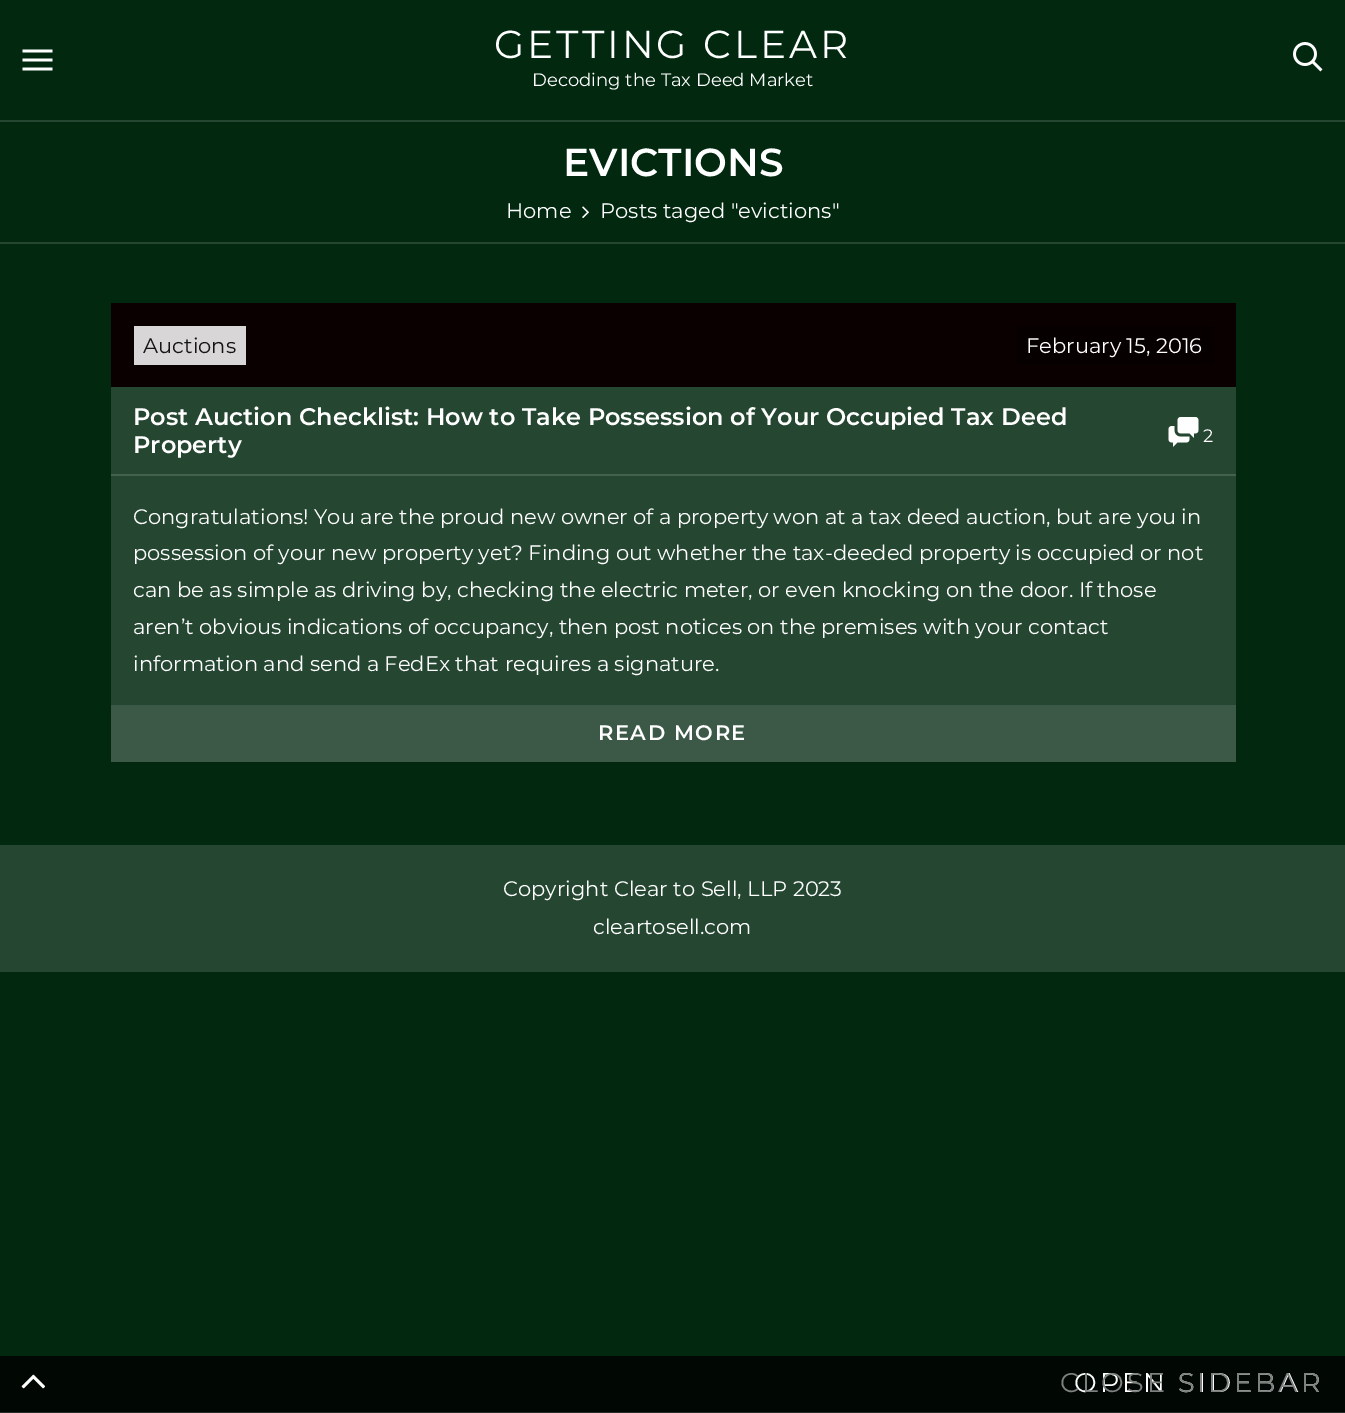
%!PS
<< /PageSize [1345 1413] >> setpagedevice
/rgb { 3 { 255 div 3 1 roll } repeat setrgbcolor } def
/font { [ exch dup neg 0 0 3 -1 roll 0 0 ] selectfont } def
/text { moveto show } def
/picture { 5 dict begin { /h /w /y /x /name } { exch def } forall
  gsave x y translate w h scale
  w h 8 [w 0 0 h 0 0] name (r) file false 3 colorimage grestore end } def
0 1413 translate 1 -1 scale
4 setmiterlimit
2 41 16 rgb
0 0 1345 1413 rectfill
37 71 49 rgb
0 120 1345 2 rectfill
(img_01.rgb) 22 49 31 22 picture
(img_02.rgb) 1293 42 30 30 picture
0 242 1345 2 rectfill
(img_03.rgb) 582 206 7 13 picture
111 387 1125 318 rectfill
10 0 0 rgb
111 303 1125 84 rectfill
216 214 214 rgb
134 326 112 39 rectfill
7 0 0 rgb
1016 326 198 39 rectfill
(img_04.rgb) 1168 417 31 30 picture
68 97 78 rgb
111 474 1125 2 rectfill
59 89 70 rgb
111 705 1125 57 rectfill
1 8 3 rgb
0 1356 1345 56 rectfill
37 43 38 rgb
0 1412 1345 1 rectfill
(img_05.rgb) 21 1374 24 15 picture
37 71 49 rgb
0 845 1345 127 rectfill
/Montserrat-Regular 39 font
255 255 255 rgb
494 58 moveto 3 0 (GETTING CLEAR) ashow
/Montserrat-Regular 18 font
(Decoding the Tax Deed Market) 532 86 text
/Montserrat-SemiBold 39 font
(EVICTIONS) 563 176 text
/Montserrat-Regular 21 font
(Home) 506 218 text
(Posts taged "evictions") 600 218 text
20 20 22 rgb
(Auctions) 143 353 text
255 255 255 rgb
(February 15, 2016) 1026 353 text
/Montserrat-SemiBold 24 font
(Post Auction Checklist: How to Take Possession of Your Occupied Tax Deed) 133 425 text
(Property) 133 453 text
/Montserrat-Regular 18 font
(2) 1203 442 text
/Montserrat-Regular 21 font
(Congratulations! You are the proud new owner of a property won at a tax deed auction, but are you in) 133 524 text
(possession of your new property yet? Finding out whether the tax-deeded property is occupied or not) 133 560 text
(can be as simple as driving by, checking the electric meter, or even knocking on the door. If those) 133 597 text
(aren’t obvious indications of occupancy, then post notices on the premises with your contact) 133 634 text
(information and send a FedEx that requires a signature.) 133 671 text
/Montserrat-SemiBold 21 font
598 740 moveto 1.5 0 (READ MORE) ashow
/Montserrat-Regular 27 font
1074 1392 moveto 3 0 (OPEN SIDEBAR) ashow
125 128 126 rgb
1060 1392 moveto 3 0 (CLOSE SIDEBAR) ashow
/Montserrat-Regular 21 font
255 255 255 rgb
(Copyright Clear to Sell, LLP 2023) 503 896 text
(cleartosell.com) 593 934 text
showpage
